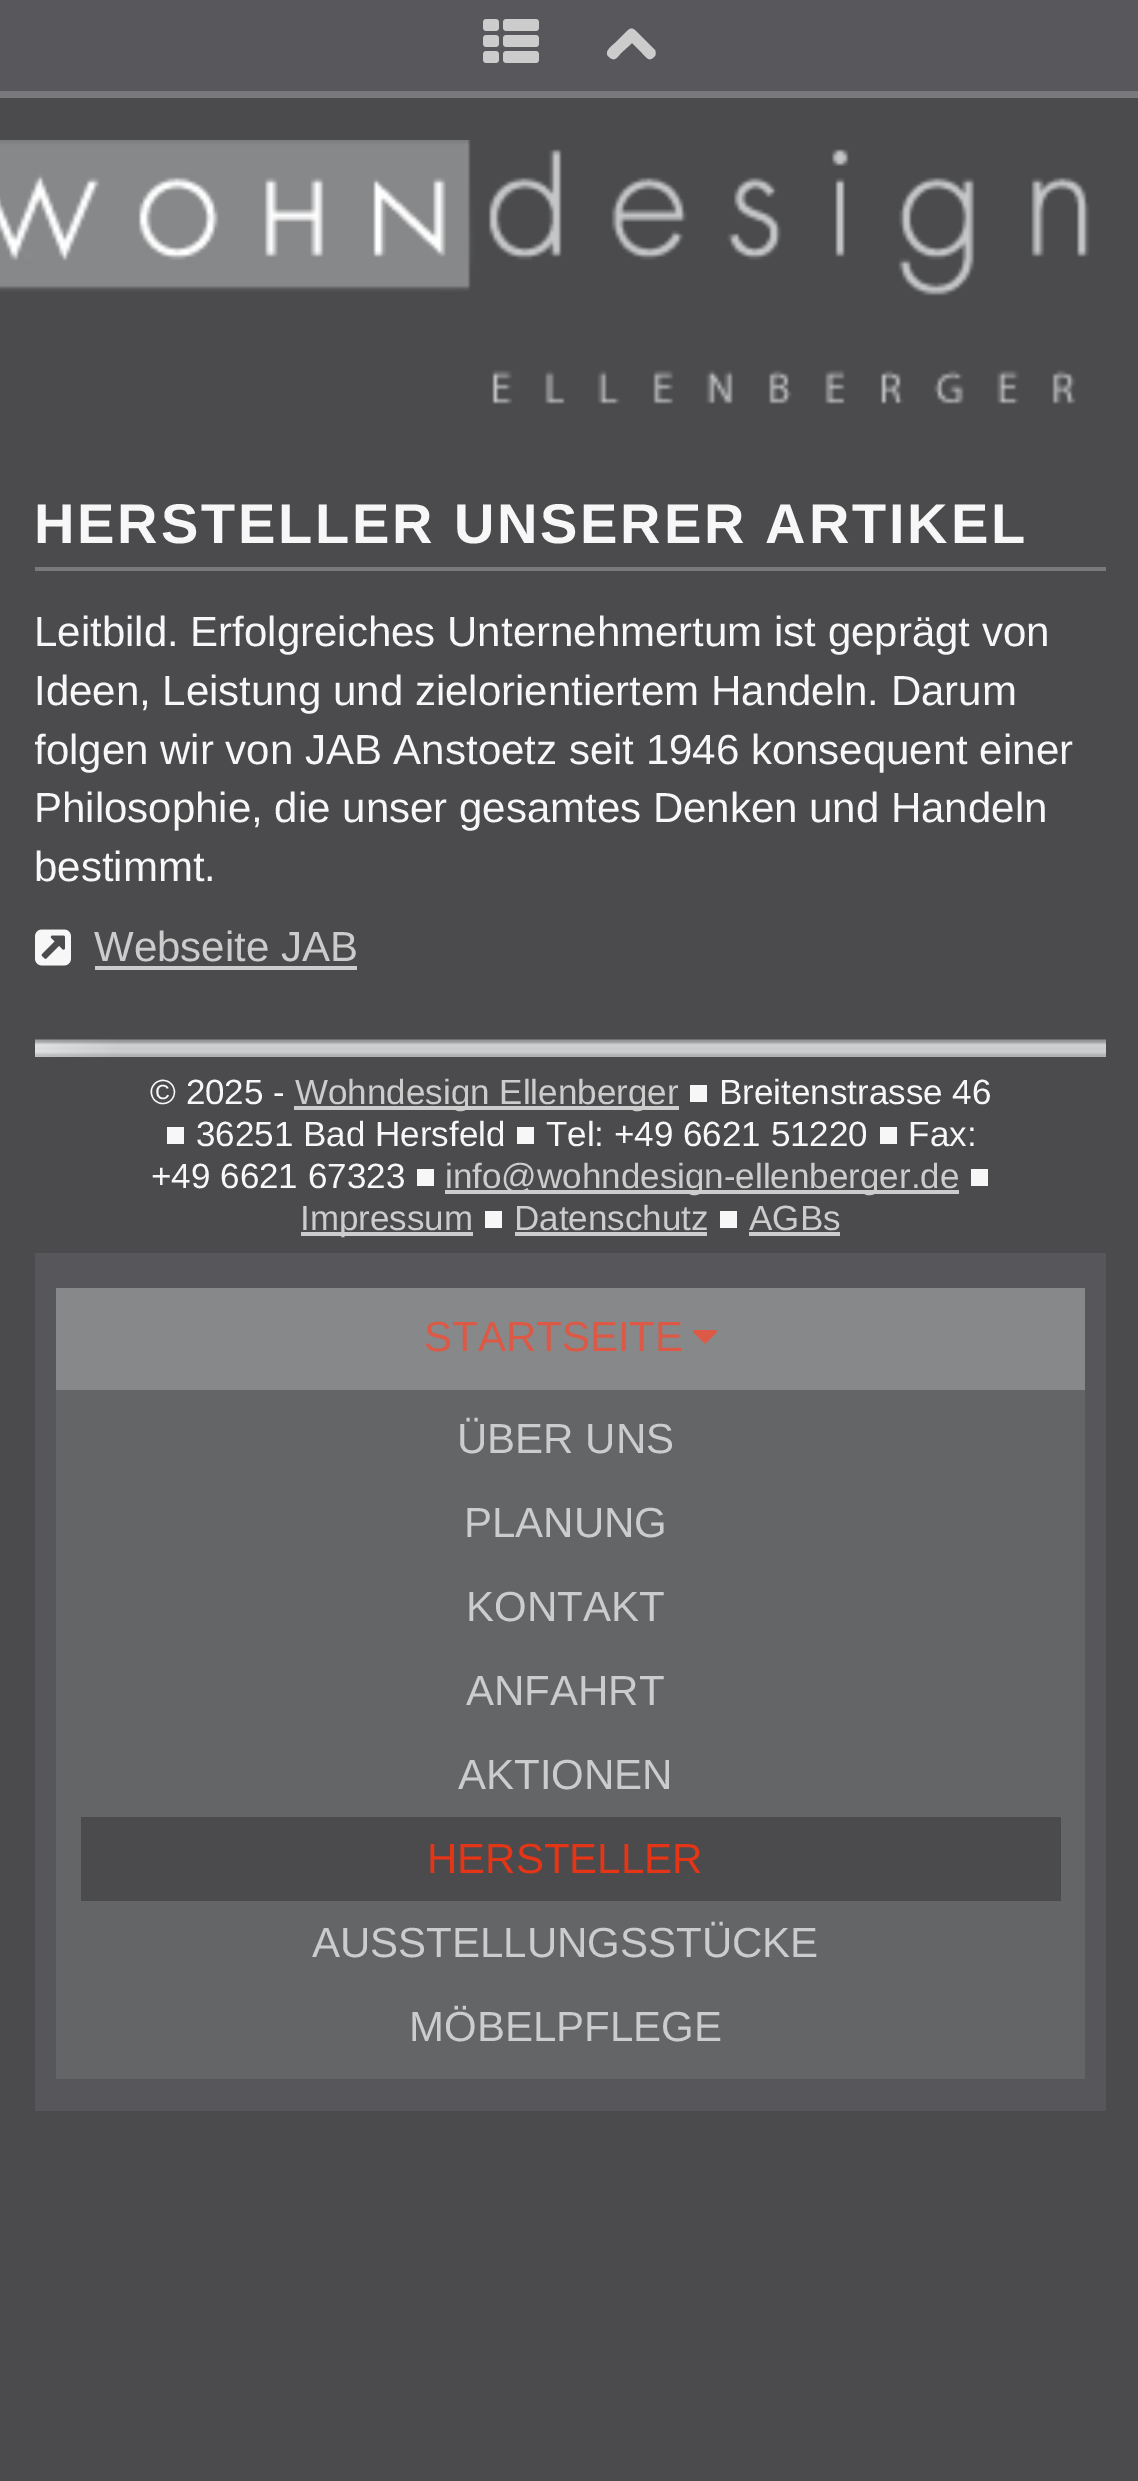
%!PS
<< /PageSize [1138 2481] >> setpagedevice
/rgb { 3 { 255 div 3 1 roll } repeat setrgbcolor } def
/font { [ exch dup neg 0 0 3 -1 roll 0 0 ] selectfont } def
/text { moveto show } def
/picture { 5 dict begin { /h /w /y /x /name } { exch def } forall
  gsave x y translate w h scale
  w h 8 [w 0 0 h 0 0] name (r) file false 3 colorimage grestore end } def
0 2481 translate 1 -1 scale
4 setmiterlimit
75 75 77 rgb
0 0 1138 2481 rectfill
87 87 92 rgb
0 0 1138 91 rectfill
121 121 123 rgb
0 91 1138 7 rectfill
(img_01.rgb) 483 19 56 44 picture
204 204 204 rgb
655 50 moveto 1 2 1 4 0 6 rcurveto -6 6 -7 3 -13 -3 rcurveto -10 -10 rlineto -11 10 rlineto -5 6 -7 9 -13 3 rcurveto -4 -5 5 -11 7 -13 rcurveto 10 -10 rlineto 6 -6 7 -6 13 0 rcurveto closepath fill
(img_02.rgb) 0 140 1106 264 picture
121 121 123 rgb
35 567 1071 4 rectfill
(img_03.rgb) 35 929 36 37 picture
204 204 204 rgb
95 966 262 4 rectfill
(img_04.rgb) 35 1039 1071 18 picture
294 1106 385 4 rectfill
445 1190 514 4 rectfill
301 1232 172 4 rectfill
515 1232 192 4 rectfill
749 1232 91 4 rectfill
86 86 91 rgb
35 1253 1071 858 rectfill
100 101 103 rgb
56 1390 1029 689 rectfill
135 136 138 rgb
56 1288 1029 102 rectfill
(img_05.rgb) 693 1330 24 14 picture
75 75 77 rgb
81 1817 980 84 rectfill
/LiberationSans-Bold 56 font
247 247 247 rgb
34 543 moveto 2.8 0 (HERSTELLER UNSERER ARTIKEL) ashow
/LiberationSans-Regular 42 font
(Leitbild. Erfolgreiches Unternehmertum ist geprägt von) 34 646 text
(Ideen, Leistung und zielorientiertem Handeln. Darum) 34 705 text
gsave
35 455 1071 585 rectclip
(folgen wir von JAB Anstoetz seit 1946 konsequent einer) 34 764 text
grestore
(Philosophie, die unser gesamtes Denken und Handeln) 34 822 text
(bestimmt.) 34 881 text
204 204 204 rgb
(Webseite JAB) 94 961 text
/LiberationSans-Regular 35 font
247 247 247 rgb
(© 2025 -) 150 1104 text
204 204 204 rgb
(Wohndesign Ellenberger) 295 1104 text
247 247 247 rgb
(■ Breitenstrasse 46) 688 1104 text
(■ 36251 Bad Hersfeld ■ Tel: +49 6621 51220 ■ Fax:) 165 1146 text
(+49 6621 67323 ■) 151 1188 text
204 204 204 rgb
(info@wohndesign-ellenberger.de) 445 1188 text
247 247 247 rgb
(■) 969 1188 text
204 204 204 rgb
(Impressum) 300 1230 text
/LiberationSans-Bold 35 font
247 247 247 rgb
(■) 483 1230 text
/LiberationSans-Regular 35 font
204 204 204 rgb
(Datenschutz) 514 1230 text
247 247 247 rgb
(■) 718 1230 text
204 204 204 rgb
(AGBs) 749 1230 text
/LiberationSans-Regular 42 font
220 89 70 rgb
(STARTSEITE) 424 1351 text
204 204 204 rgb
(ÜBER UNS) 457 1453 text
(PLANUNG) 464 1537 text
(KONTAKT) 466 1621 text
(ANFAHRT) 466 1705 text
(AKTIONEN) 458 1789 text
229 53 23 rgb
(HERSTELLER) 427 1873 text
204 204 204 rgb
(AUSSTELLUNGSSTÜCKE) 312 1957 text
(MÖBELPFLEGE) 409 2041 text
showpage
